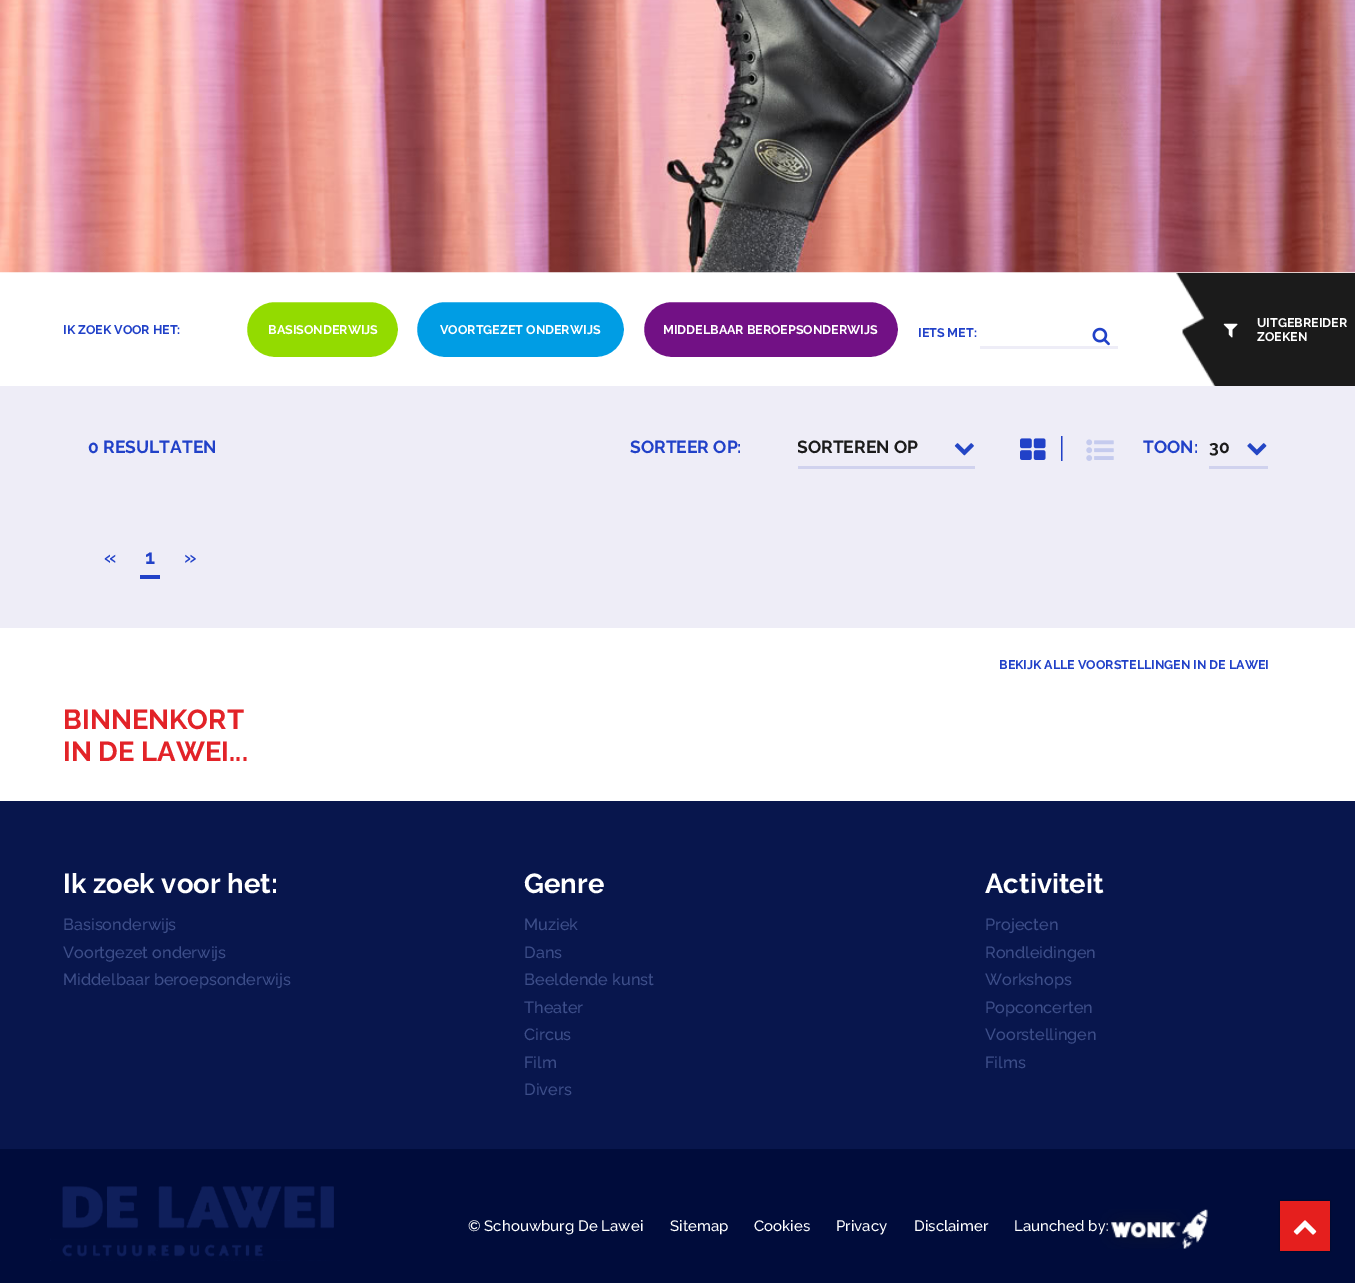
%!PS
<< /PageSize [1355 1283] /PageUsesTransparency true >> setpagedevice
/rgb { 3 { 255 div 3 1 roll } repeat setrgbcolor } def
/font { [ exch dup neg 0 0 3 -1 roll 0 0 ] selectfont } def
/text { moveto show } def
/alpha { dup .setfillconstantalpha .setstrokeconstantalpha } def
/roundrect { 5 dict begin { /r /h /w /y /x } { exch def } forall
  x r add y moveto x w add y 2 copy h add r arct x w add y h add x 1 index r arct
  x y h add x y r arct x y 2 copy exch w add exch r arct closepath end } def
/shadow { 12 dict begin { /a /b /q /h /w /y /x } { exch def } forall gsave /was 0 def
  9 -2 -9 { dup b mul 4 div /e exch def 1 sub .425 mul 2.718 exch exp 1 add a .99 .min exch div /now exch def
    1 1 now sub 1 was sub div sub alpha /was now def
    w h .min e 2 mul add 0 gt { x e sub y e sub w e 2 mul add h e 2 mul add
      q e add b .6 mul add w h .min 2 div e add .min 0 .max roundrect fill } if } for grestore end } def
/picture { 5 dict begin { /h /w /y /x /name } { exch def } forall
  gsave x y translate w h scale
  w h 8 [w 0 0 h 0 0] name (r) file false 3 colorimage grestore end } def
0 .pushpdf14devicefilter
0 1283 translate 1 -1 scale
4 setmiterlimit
255 255 255 rgb
0 0 1355 1283 rectfill
(img_01.rgb) 0 0 1355 273 picture
147 219 0 rgb
244 299 157 61 30.5 roundrect gsave fill grestore
255 255 255 rgb
6 setlinewidth
stroke
0 157 228 rgb
414 299 213 61 30.5 roundrect gsave fill grestore
255 255 255 rgb
stroke
114 17 133 rgb
641 299 260 61 30.5 roundrect gsave fill grestore
255 255 255 rgb
stroke
238 237 247 rgb
980 346 138 3 rectfill
(img_02.rgb) 1092 327 18 19 picture
27 27 27 rgb
1176 273 179 113 rectfill
(img_03.rgb) 1155 273 61 113 picture
(img_04.rgb) 1223 323 15 15 picture
238 237 247 rgb
0 386 1355 242 rectfill
208 210 238 rgb
798 466 177 3 rectfill
(img_05.rgb) 954 443 20 13 picture
(img_06.rgb) 1020 438 26 22 picture
(img_07.rgb) 1086 439 28 22 picture
1209 466 59 3 rectfill
(img_08.rgb) 1247 443 20 13 picture
33 65 200 rgb
140 575 20 4 rectfill
8 22 77 rgb
0 801 1355 348 rectfill
0 12 59 rgb
0 1149 1355 134 rectfill
(img_09.rgb) 50 1186 284 75 picture
0 0 0 rgb
1280 1201 50 50 0 1 0.5 shadow
229 31 30 rgb
1280 1201 50 50 rectfill
(img_11.rgb) 1293 1220 24 15 picture
/Raleway-Bold 12.5 font
33 65 200 rgb
(IK ZOEK VOOR HET:) 63 334 text
255 255 255 rgb
(BASISONDERWIJS) 268 334 text
(VOORTGEZET ONDERWIJS) 440 334 text
(MIDDELBAAR BEROEPSONDERWIJS) 663 334 text
33 65 200 rgb
(IETS MET:) 918 337 text
255 255 255 rgb
(UITGEBREIDER) 1257 327 text
(ZOEKEN) 1257 341 text
/Raleway-Bold 17.5 font
33 65 200 rgb
(0 RESULTATEN) 88 453 text
(SORTEER OP:) 630 453 text
gsave
798 436 121 20 rectclip
27 27 27 rgb
(SORTEREN OP) 797 453 text
grestore
/LiberationSerif-Regular 27.5 font
(|) 1059 455 text
/Raleway-Bold 17.5 font
(TOON:) 1143 453 text
27 27 27 rgb
(30) 1209 453 text
/Raleway-SemiBold 20 font
33 65 200 rgb
(«) 104 564 text
/Raleway-Bold 20 font
(1) 145 564 text
/Raleway-SemiBold 20 font
(») 184 564 text
/Raleway-Bold 12.5 font
(BEKIJK ALLE VOORSTELLINGEN IN DE LAWEI) 999 669 text
/Raleway-Bold 27.5 font
226 35 40 rgb
(BINNENKORT) 63 729 text
(IN DE LAWEI...) 63 761 text
255 255 255 rgb
(Ik zoek voor het:) 63 893 text
/Raleway-Medium 16.25 font
61 78 137 rgb
(Basisonderwijs) 63 930 text
(Voortgezet onderwijs) 63 958 text
(Middelbaar beroepsonderwijs) 63 985 text
/Raleway-Bold 27.5 font
255 255 255 rgb
(Genre) 524 893 text
/Raleway-Medium 16.25 font
61 78 137 rgb
(Muziek) 524 930 text
(Dans) 524 958 text
(Beeldende kunst) 524 985 text
(Theater) 524 1013 text
(Circus) 524 1040 text
(Film) 524 1068 text
(Divers) 524 1095 text
/Raleway-Bold 27.5 font
255 255 255 rgb
(Activiteit) 985 893 text
/Raleway-Medium 16.25 font
61 78 137 rgb
(Projecten) 985 930 text
(Rondleidingen) 985 958 text
(Workshops) 985 985 text
(Popconcerten) 985 1013 text
(Voorstellingen) 985 1040 text
(Films) 985 1068 text
/Raleway-Medium 15 font
255 255 255 rgb
(© Schouwburg De Lawei) 468 1231 text
(Sitemap) 670 1231 text
(Cookies) 754 1231 text
(Privacy) 836 1231 text
(Disclaimer) 914 1231 text
(Launched by:) 1014 1231 text
(img_10.rgb) 1100 1209 108 40 picture
.poppdf14devicefilter showpage
